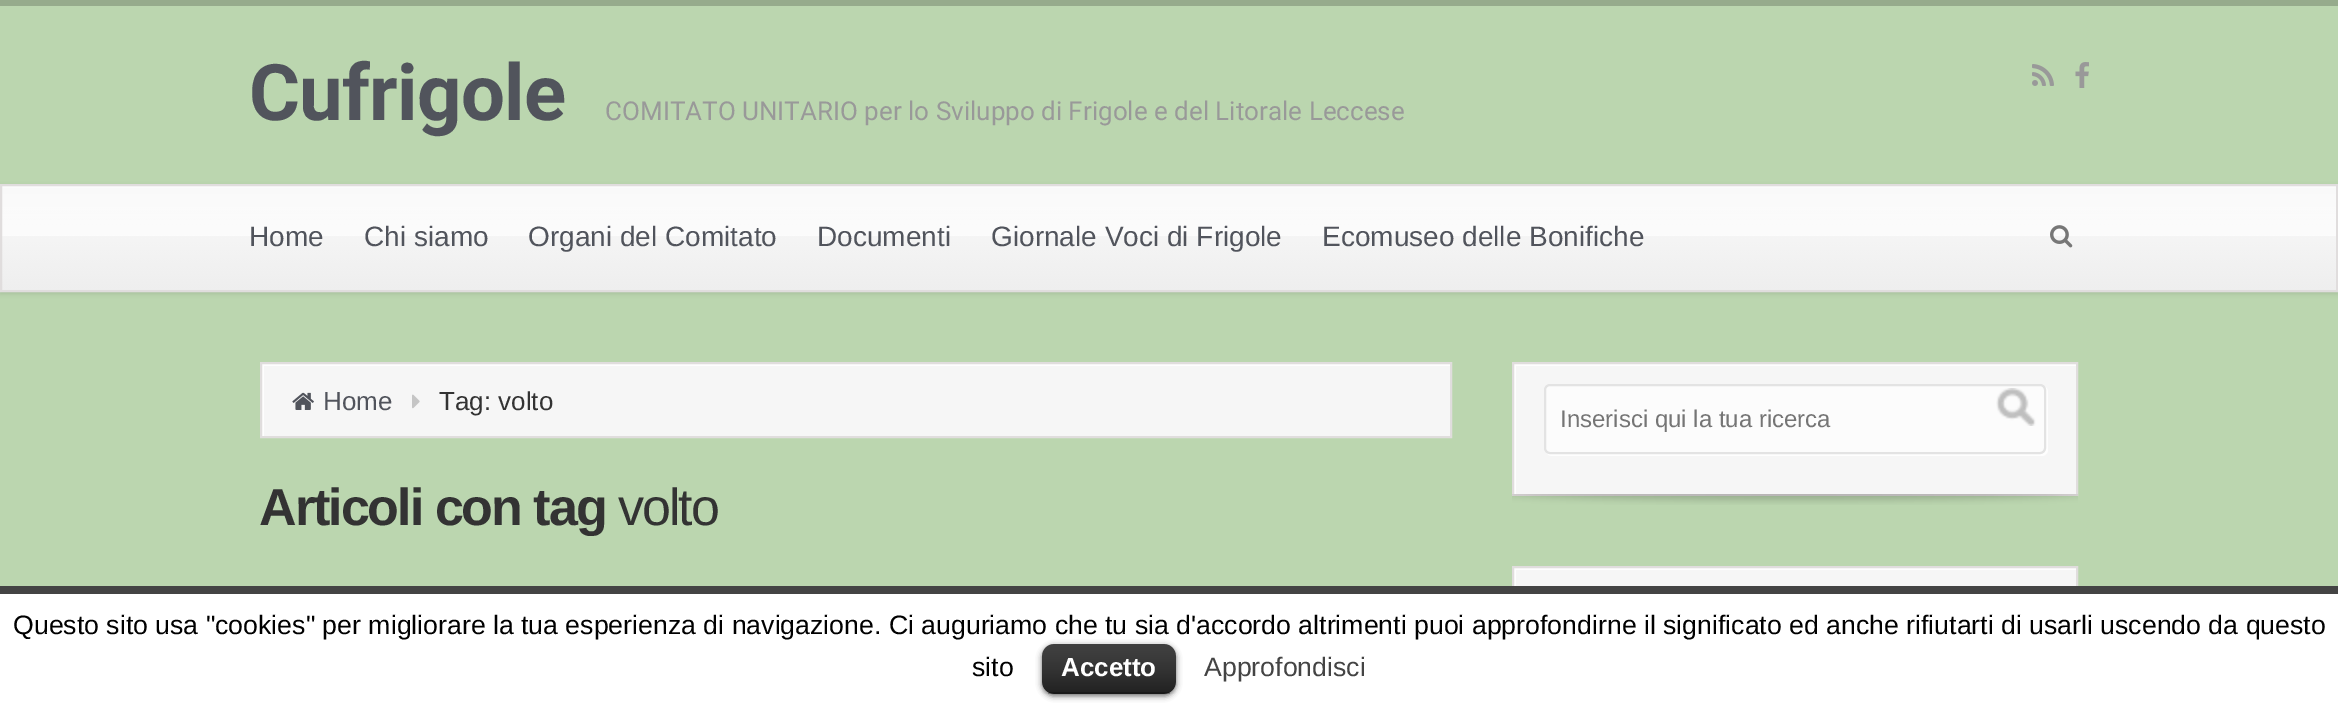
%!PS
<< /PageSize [2338 703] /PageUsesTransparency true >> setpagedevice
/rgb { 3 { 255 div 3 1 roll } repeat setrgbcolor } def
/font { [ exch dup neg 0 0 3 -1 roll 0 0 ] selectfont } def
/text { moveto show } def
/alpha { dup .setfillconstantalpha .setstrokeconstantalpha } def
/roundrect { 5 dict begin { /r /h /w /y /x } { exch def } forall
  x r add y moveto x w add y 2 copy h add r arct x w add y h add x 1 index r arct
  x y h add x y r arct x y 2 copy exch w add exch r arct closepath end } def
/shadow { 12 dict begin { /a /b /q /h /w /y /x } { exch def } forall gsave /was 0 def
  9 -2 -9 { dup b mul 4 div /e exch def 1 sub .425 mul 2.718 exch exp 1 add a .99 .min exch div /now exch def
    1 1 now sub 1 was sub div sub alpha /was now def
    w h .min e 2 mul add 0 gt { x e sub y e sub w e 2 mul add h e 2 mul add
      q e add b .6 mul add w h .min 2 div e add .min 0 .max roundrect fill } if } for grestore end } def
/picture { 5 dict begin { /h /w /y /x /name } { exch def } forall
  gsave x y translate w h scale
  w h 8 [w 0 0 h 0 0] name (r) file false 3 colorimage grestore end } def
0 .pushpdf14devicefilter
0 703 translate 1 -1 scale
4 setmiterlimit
187 214 175 rgb
0 0 2338 703 rectfill
150 171 140 rgb
0 0 2338 6 rectfill
(img_01.rgb) 2032 64 22 22 picture
(img_02.rgb) 2075 62 14 26 picture
0 0 0 rgb
0 186 2338 108 0 2 0.1 shadow
(img_03.rgb) 2 188 2334 102 picture
251 251 251 rgb
2 186 2334 2 rectfill
224 221 221 rgb
2 setlinewidth
1 185 2336 106 rectstroke
(img_04.rgb) 2050 225 23 23 picture
246 246 246 rgb
264 366 1186 70 rectfill
gsave
262 364 1188 72 rectclip
254 254 254 rgb
64 166 moveto 1584 0 rlineto 0 468 rlineto -1584 0 rlineto closepath 264 366 moveto 1188 0 rlineto 0 72 rlineto -1188 0 rlineto closepath eofill
grestore
224 221 221 rgb
261 363 1190 74 rectstroke
(img_05.rgb) 292 392 22 18 picture
(img_06.rgb) 412 394 8 15 picture
246 246 246 rgb
1516 366 560 128 rectfill
gsave
1514 364 562 130 rectclip
254 254 254 rgb
1316 166 moveto 958 0 rlineto 0 526 rlineto -958 0 rlineto closepath 1516 366 moveto 562 0 rlineto 0 130 rlineto -562 0 rlineto closepath eofill
grestore
224 221 221 rgb
1513 363 564 132 rectstroke
254 254 254 rgb
1547 453 moveto 1 2 3 3 5 3 rcurveto 490 0 rlineto 3 0 6 -3 6 -6 rcurveto 0 -58 rlineto 0 -2 -1 -4 -3 -5 rcurveto 1 3 rlineto 0 58 rlineto 0 3 -3 6 -6 6 rcurveto -490 0 rlineto closepath fill
0.7 alpha
255 255 255 rgb
1545 385 500 68 5 roundrect fill
1 alpha
227 227 227 rgb
1545 385 500 68 5 roundrect stroke
(img_07.rgb) 1996 388 40 38 picture
(img_08.rgb) 1512 494 566 11 picture
246 246 246 rgb
1516 570 560 16 rectfill
gsave
1514 568 562 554 rectclip
254 254 254 rgb
1316 370 moveto 958 0 rlineto 0 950 rlineto -958 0 rlineto closepath 1516 570 moveto 562 0 rlineto 0 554 rlineto -562 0 rlineto closepath eofill
grestore
224 221 221 rgb
1513 567 564 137 rectstroke
255 255 255 rgb
0 594 2338 109 rectfill
68 68 68 rgb
0 586 2338 8 rectfill
0 0 0 rgb
1042 646 134 50 12 3 0.6 shadow
1042 644 134 50 12 roundrect fill
(img_09.rgb) 1042 644 134 50 picture
0.25 alpha
1048 692 122 2 rectfill
/Roboto-Bold 78 font
1 alpha
81 84 92 rgb
249 120 moveto -0.75 0 (Cufrigole) ashow
/Roboto-Regular 26 font
153 153 153 rgb
(COMITATO UNITARIO per lo Sviluppo di Frigole e del Litorale Leccese) 605 120 text
/LiberationSans-Regular 28 font
81 84 92 rgb
(Home) 249 246 text
(Chi siamo) 364 246 text
(Organi del Comitato) 528 246 text
(Documenti) 817 246 text
(Giornale Voci di Frigole) 991 246 text
(Ecomuseo delle Bonifiche) 1322 246 text
/LiberationSans-Regular 26 font
(Home) 323 410 text
51 51 51 rgb
(Tag: volto) 439 410 text
/LiberationSans-Bold 52 font
259 525 moveto -2 0 (Articoli con tag) ashow
/LiberationSans-Regular 52 font
618 525 moveto -2 0 (volto) ashow
/LiberationSans-Regular 24 font
117 117 117 rgb
(Inserisci qui la tua ricerca) 1560 427 text
/LiberationSans-Regular 26.67 font
0 0 0 rgb
(Questo sito usa "cookies" per migliorare la tua esperienza di navigazione. Ci auguriamo che tu sia d'accordo altrimenti puoi approfondirne il significato ed anche rifiutarti di usarli uscendo da questo) 13 634 text
(sito) 972 676 text
/LiberationSans-Bold 26 font
255 255 255 rgb
(Accetto) 1061 676 text
/LiberationSans-Regular 26.67 font
68 68 68 rgb
(Approfondisci) 1204 676 text
.poppdf14devicefilter showpage
